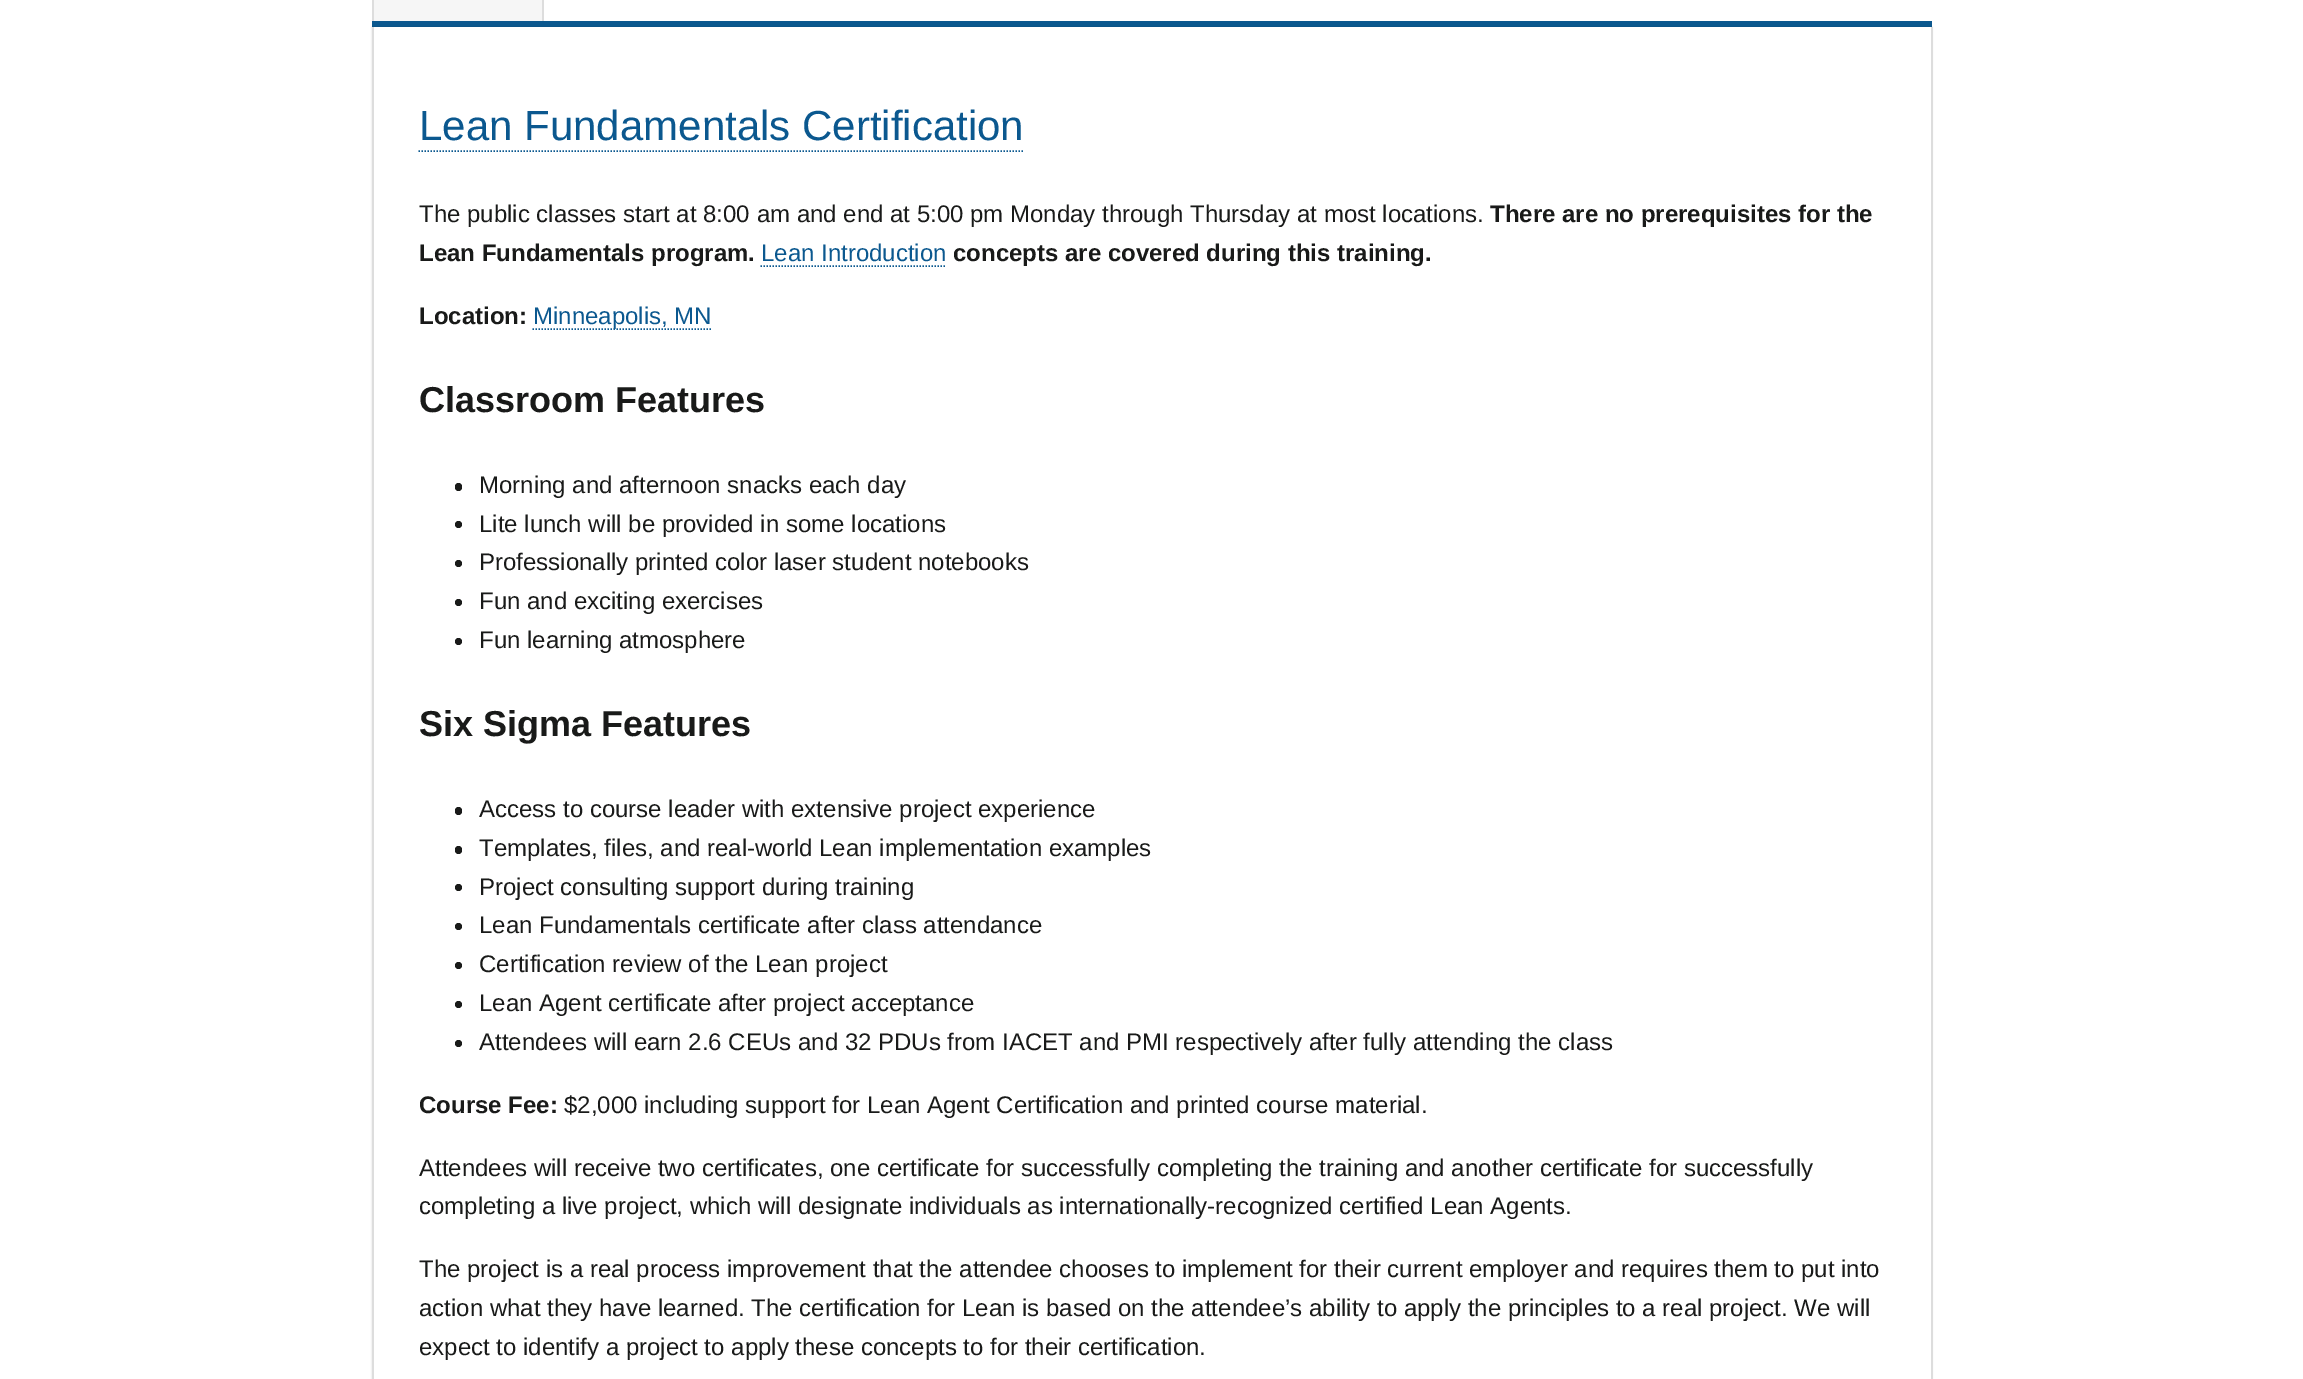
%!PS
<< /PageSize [2303 1379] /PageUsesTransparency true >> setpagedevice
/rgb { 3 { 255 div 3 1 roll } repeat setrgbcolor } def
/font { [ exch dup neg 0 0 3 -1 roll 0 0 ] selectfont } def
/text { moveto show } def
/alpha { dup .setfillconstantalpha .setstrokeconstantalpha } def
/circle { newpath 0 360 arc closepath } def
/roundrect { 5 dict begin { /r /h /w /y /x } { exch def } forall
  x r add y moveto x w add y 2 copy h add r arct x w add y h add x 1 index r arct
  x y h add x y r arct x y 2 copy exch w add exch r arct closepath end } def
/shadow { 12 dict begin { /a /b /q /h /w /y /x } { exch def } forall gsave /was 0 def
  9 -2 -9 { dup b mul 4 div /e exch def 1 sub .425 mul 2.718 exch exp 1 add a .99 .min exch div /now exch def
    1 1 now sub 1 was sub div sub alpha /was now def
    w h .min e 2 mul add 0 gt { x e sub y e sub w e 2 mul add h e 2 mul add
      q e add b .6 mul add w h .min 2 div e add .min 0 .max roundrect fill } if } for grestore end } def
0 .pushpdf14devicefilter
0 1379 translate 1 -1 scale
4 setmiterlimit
255 255 255 rgb
0 0 2303 1379 rectfill
11 88 143 rgb
372 21 1560 6 rectfill
246 246 246 rgb
374 0 168 21 rectfill
221 221 221 rgb
542 0 2 21 rectfill
372 0 2 21 rectfill
gsave
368 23 moveto 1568 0 rlineto 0 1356 rlineto -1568 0 rlineto closepath 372 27 moveto 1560 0 rlineto 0 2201 rlineto -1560 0 rlineto closepath eoclip newpath
0 0 0 rgb
372 27 1560 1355 0 1 0.15 shadow
grestore
1931 27 2 1352 rectfill
372 27 2 1352 rectfill
11 88 143 rgb
1.5 setlinewidth
[1.5 1.5] 0 setdash
418.5 151 moveto 604.5 0 rlineto stroke
760.5 266 moveto 186 0 rlineto stroke
532.5 329 moveto 180 0 rlineto stroke
25 26 25 rgb
455 483 7 8 3.5 roundrect fill
458.5 524.5 3.5 circle fill
458.5 563.5 3.5 circle fill
458.5 602.5 3.5 circle fill
458.5 641.5 3.5 circle fill
455 807 7 8 3.5 roundrect fill
455 846 7 8 3.5 roundrect fill
458.5 887.5 3.5 circle fill
458.5 926.5 3.5 circle fill
458.5 965.5 3.5 circle fill
458.5 1004.5 3.5 circle fill
458.5 1043.5 3.5 circle fill
/LiberationSans-Regular 42 font
11 88 143 rgb
(Lean Fundamentals Certification) 419 140 text
/LiberationSans-Regular 24 font
25 26 25 rgb
(The public classes start at 8:00 am and end at 5:00 pm Monday through Thursday at most locations.) 419 222 text
/LiberationSans-Bold 24 font
(There are no prerequisites for the) 1490 222 text
(Lean Fundamentals program.) 419 261 text
/LiberationSans-Regular 24 font
11 88 143 rgb
(Lean Introduction) 761 261 text
/LiberationSans-Bold 24 font
25 26 25 rgb
(concepts are covered during this training.) 953 261 text
(Location:) 419 324 text
/LiberationSans-Regular 24 font
11 88 143 rgb
(Minneapolis, MN) 533 324 text
/LiberationSans-Bold 36 font
25 26 25 rgb
(Classroom Features) 419 412 text
/LiberationSans-Regular 24 font
(Morning and afternoon snacks each day) 479 493 text
(Lite lunch will be provided in some locations) 479 532 text
(Professionally printed color laser student notebooks) 479 570 text
(Fun and exciting exercises) 479 609 text
(Fun learning atmosphere) 479 648 text
/LiberationSans-Bold 36 font
(Six Sigma Features) 419 736 text
/LiberationSans-Regular 24 font
(Access to course leader with extensive project experience) 479 817 text
(Templates, files, and real-world Lean implementation examples) 479 856 text
(Project consulting support during training) 479 895 text
(Lean Fundamentals certificate after class attendance) 479 933 text
(Certification review of the Lean project) 479 972 text
(Lean Agent certificate after project acceptance) 479 1011 text
(Attendees will earn 2.6 CEUs and 32 PDUs from IACET and PMI respectively after fully attending the class) 479 1050 text
/LiberationSans-Bold 24 font
(Course Fee:) 419 1113 text
/LiberationSans-Regular 24 font
($2,000 including support for Lean Agent Certification and printed course material.) 564 1113 text
(Attendees will receive two certificates, one certificate for successfully completing the training and another certificate for successfully) 419 1176 text
(completing a live project, which will designate individuals as internationally-recognized certified Lean Agents.) 419 1214 text
(The project is a real process improvement that the attendee chooses to implement for their current employer and requires them to put into) 419 1277 text
(action what they have learned. The certification for Lean is based on the attendee’s ability to apply the principles to a real project. We will) 419 1316 text
(expect to identify a project to apply these concepts to for their certification.) 419 1355 text
.poppdf14devicefilter showpage
